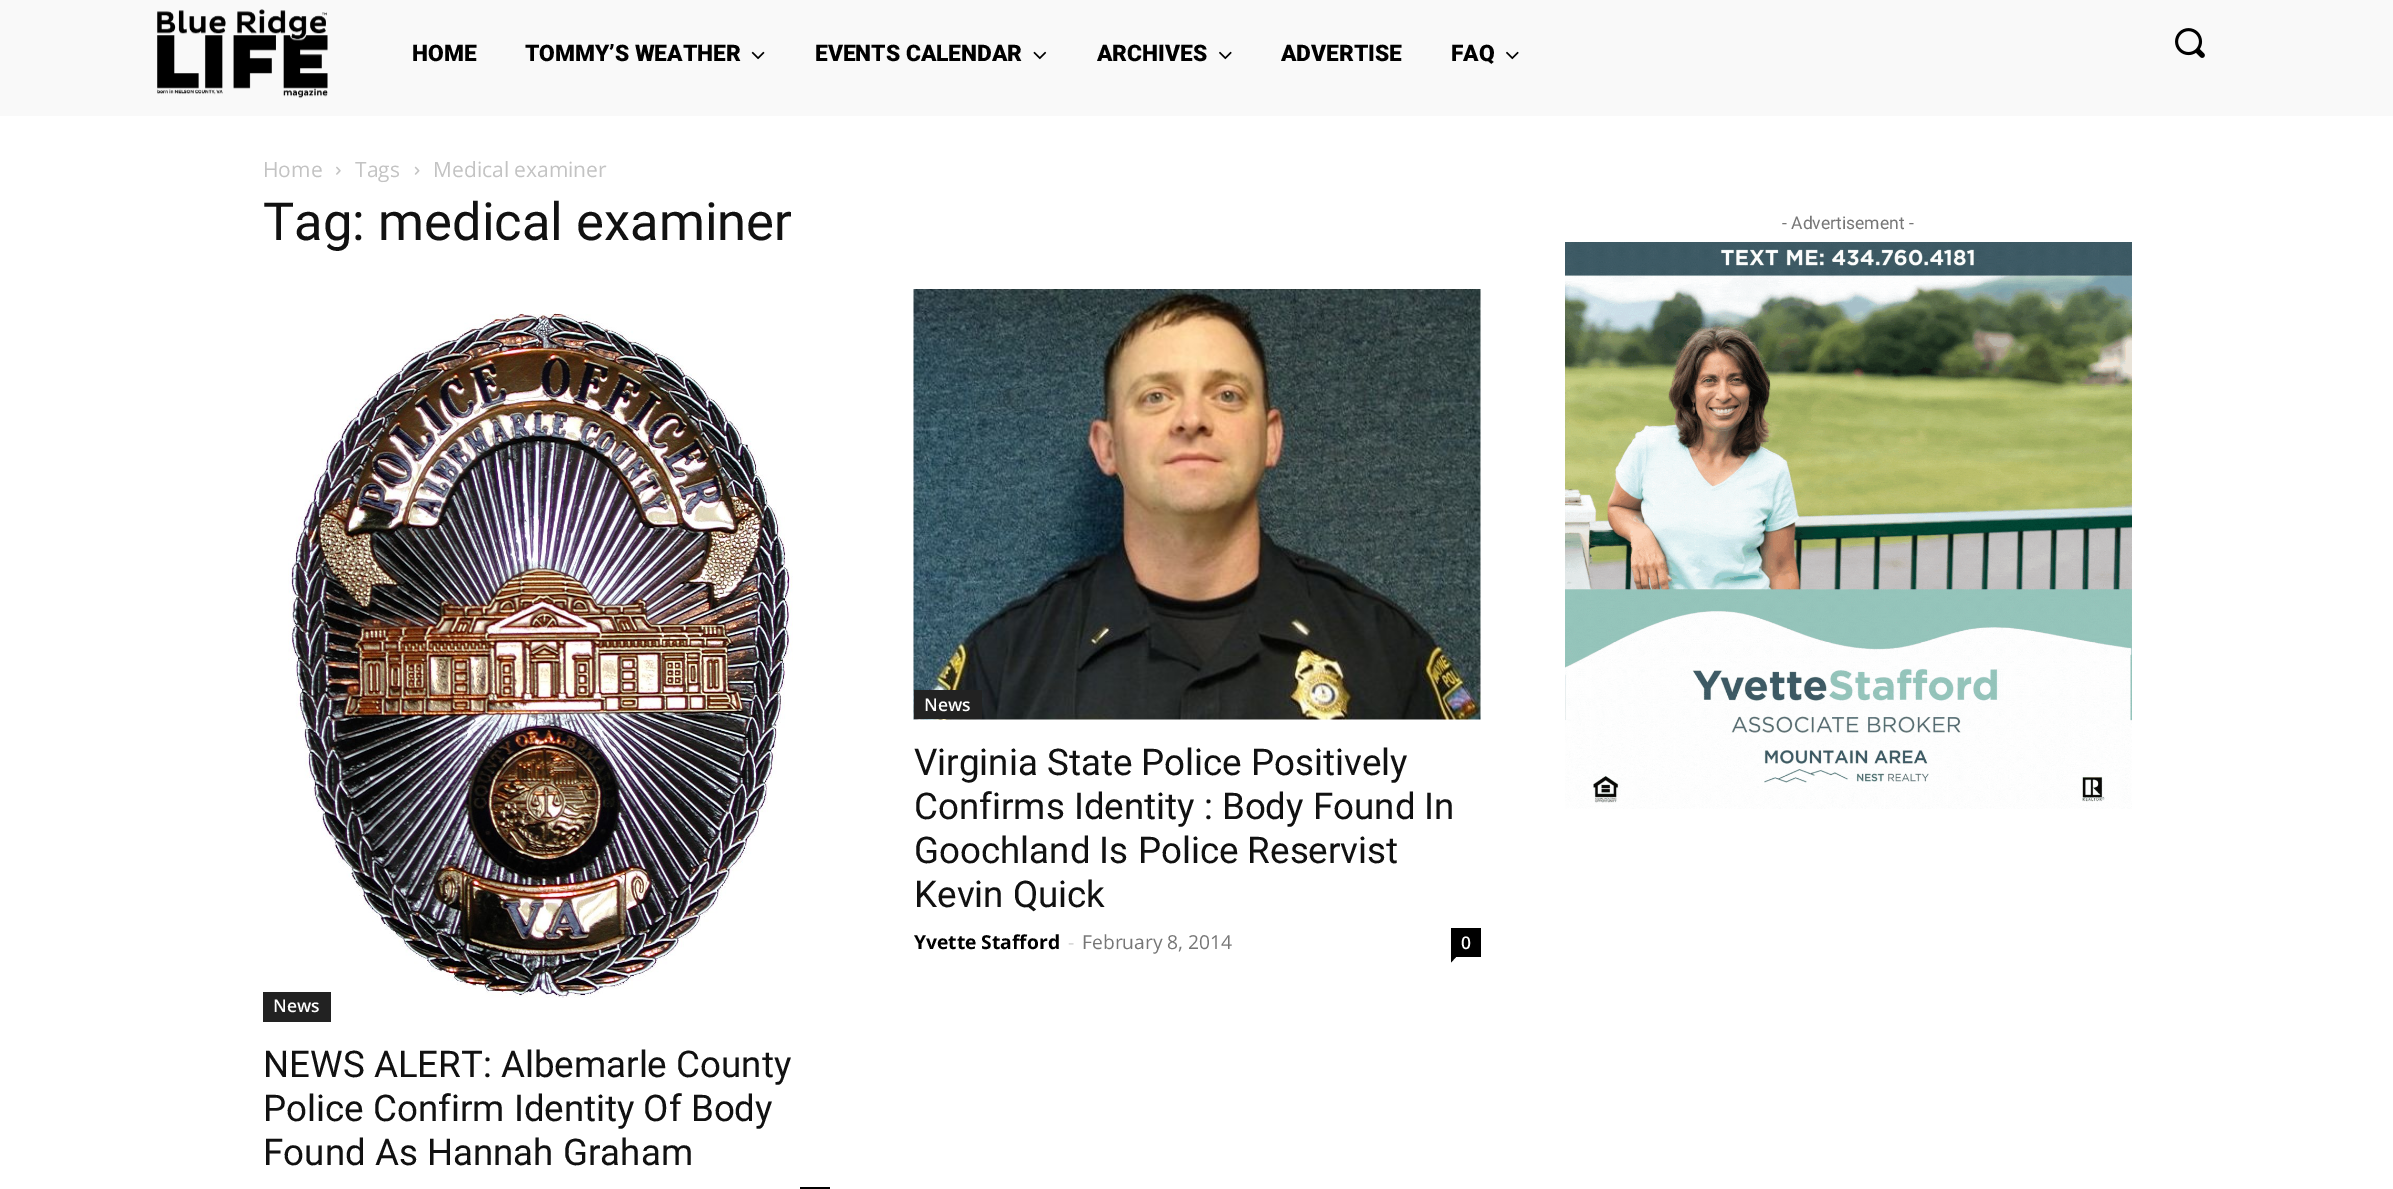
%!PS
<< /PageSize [2393 1189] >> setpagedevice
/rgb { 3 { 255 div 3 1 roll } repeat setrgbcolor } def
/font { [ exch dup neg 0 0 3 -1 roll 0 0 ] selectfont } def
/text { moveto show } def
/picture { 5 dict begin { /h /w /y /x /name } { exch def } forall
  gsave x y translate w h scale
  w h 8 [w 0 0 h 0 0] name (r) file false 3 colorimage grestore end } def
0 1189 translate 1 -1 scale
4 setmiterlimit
255 255 255 rgb
0 0 2393 1189 rectfill
249 249 249 rgb
0 0 2393 116 rectfill
(img_01.rgb) 157 9 171 90 picture
(img_02.rgb) 751 51 14 9 picture
(img_03.rgb) 1033 51 14 9 picture
(img_04.rgb) 1219 51 13 9 picture
(img_04.rgb) 1506 51 13 9 picture
(img_05.rgb) 2175 28 30 30 picture
(img_06.rgb) 336 166 5 9 picture
(img_07.rgb) 414 166 6 9 picture
(img_08.rgb) 913 289 568 431 picture
34 34 34 rgb
914 690 68 29 rectfill
0 0 0 rgb
1451 928 30 29 rectfill
1451 957 moveto 5 0 rlineto -5 5.5 rlineto closepath fill
(img_09.rgb) 288 313 505 685 picture
34 34 34 rgb
263 992 68 30 rectfill
0 0 0 rgb
800 1187 30 2 rectfill
(img_10.rgb) 1565 242 567 567 picture
/Roboto-Black 22.75 font
(HOME) 412 61 text
(TOMMY’S WEATHER) 525 61 text
(EVENTS CALENDAR) 815 61 text
(ARCHIVES) 1097 61 text
(ADVERTISE) 1281 61 text
(FAQ) 1451 61 text
/OpenSans-Regular 21 font
195 195 195 rgb
(Home) 263 177 text
(Tags) 355 177 text
(Medical examiner) 433 177 text
/Roboto-Regular 52.5 font
17 17 17 rgb
(Tag: medical examiner) 263 240 text
/OpenSans-SemiBold 17.5 font
255 255 255 rgb
(News) 924 711 text
/Roboto-Regular 36.75 font
17 17 17 rgb
(Virginia State Police Positively) 914 775 text
(Confirms Identity : Body Found In) 914 819 text
(Goochland Is Police Reservist) 914 863 text
(Kevin Quick) 914 907 text
/OpenSans-Bold 19.25 font
0 0 0 rgb
(Yvette Stafford) 914 949 text
/OpenSans-Regular 19.25 font
204 204 204 rgb
(-) 1068 949 text
118 118 118 rgb
(February 8, 2014) 1082 949 text
/OpenSans-SemiBold 17.5 font
255 255 255 rgb
(0) 1461 949 text
(News) 273 1012 text
/Roboto-Regular 36.75 font
17 17 17 rgb
(NEWS ALERT: Albemarle County) 263 1077 text
(Police Confirm Identity Of Body) 263 1121 text
(Found As Hannah Graham) 263 1165 text
/Roboto-Regular 17.5 font
118 118 118 rgb
(- Advertisement -) 1782 229 text
showpage
